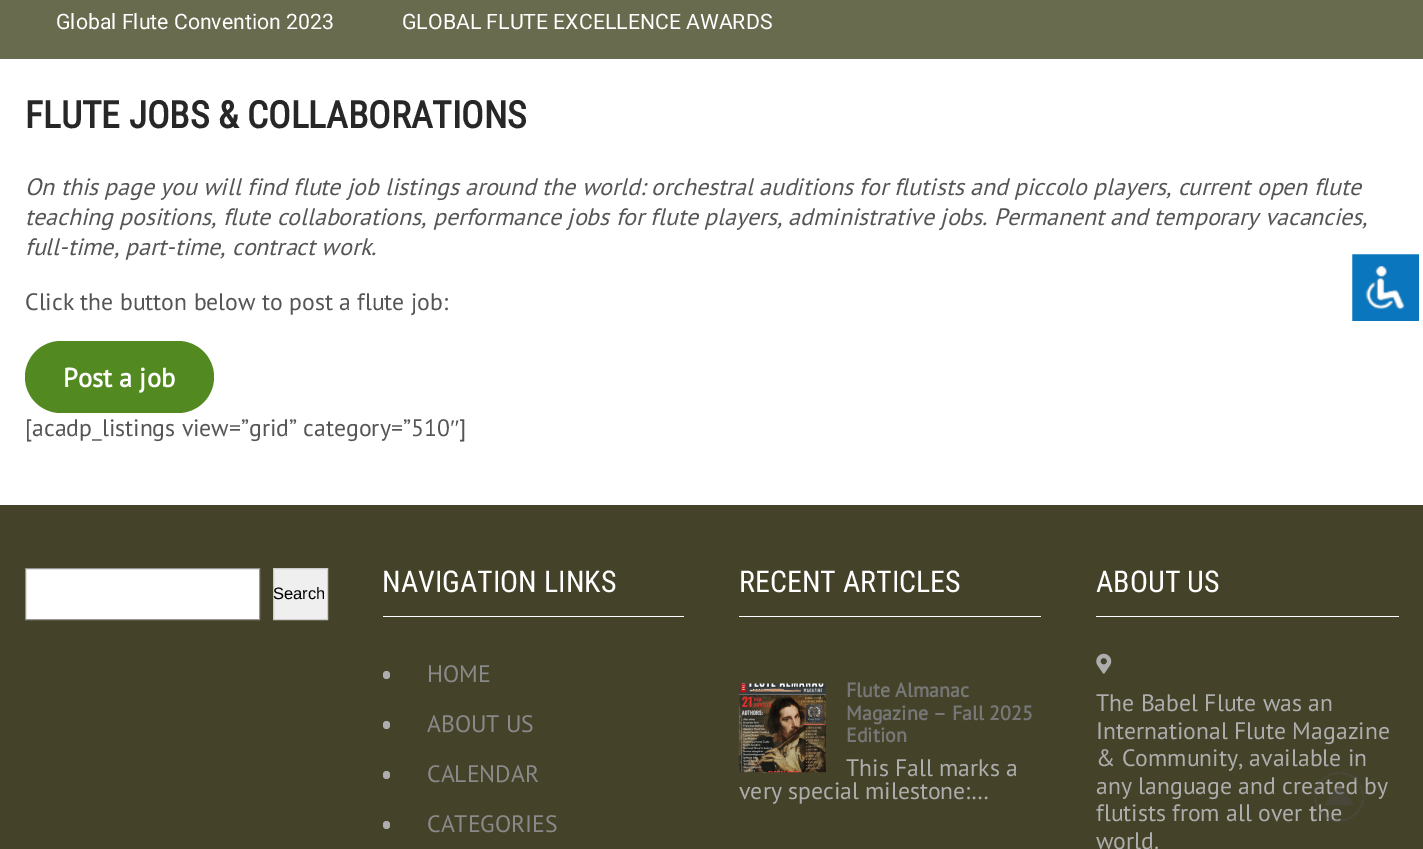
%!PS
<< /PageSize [1423 849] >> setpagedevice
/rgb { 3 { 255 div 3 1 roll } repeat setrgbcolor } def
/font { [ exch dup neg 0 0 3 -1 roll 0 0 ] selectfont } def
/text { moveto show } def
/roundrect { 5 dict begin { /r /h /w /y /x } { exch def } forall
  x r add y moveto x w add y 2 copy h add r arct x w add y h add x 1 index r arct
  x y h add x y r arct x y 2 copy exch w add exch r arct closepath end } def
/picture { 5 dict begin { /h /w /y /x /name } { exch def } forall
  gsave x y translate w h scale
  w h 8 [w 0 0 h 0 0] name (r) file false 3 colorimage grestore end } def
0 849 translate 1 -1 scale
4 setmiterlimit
255 255 255 rgb
0 0 1423 849 rectfill
105 107 78 rgb
0 0 1423 59 rectfill
82 137 32 rgb
25 341 189 72 36 roundrect fill
68 66 40 rgb
0 505 1423 344 rectfill
255 255 255 rgb
25.5 568.5 moveto 234 0 rlineto 0 51 rlineto -234 0 rlineto closepath gsave fill grestore
148 148 148 rgb
stroke
239 239 239 rgb
273.5 568.5 moveto 54 0 rlineto 0 51 rlineto -54 0 rlineto closepath gsave fill grestore
204 204 204 rgb
stroke
255 255 255 rgb
383 616 301 1 rectfill
173 173 173 rgb
383 671 7 8 3.5 roundrect fill
383 721 7 8 3.5 roundrect fill
383 771 7 8 3.5 roundrect fill
383 821 7 8 3.5 roundrect fill
255 255 255 rgb
739 616 302 1 rectfill
(img_01.rgb) 738 683 89 90 picture
1096 616 303 1 rectfill
(img_02.rgb) 1096 653 16 21 picture
10 118 190 rgb
1350 252 71 71 0.5 roundrect gsave fill grestore
255 255 255 rgb
4 setlinewidth
stroke
(img_04.rgb) 1365 266 40 44 picture
/Roboto-Regular 21.25 font
(Global Flute Convention 2023) 56 29 text
(GLOBAL FLUTE EXCELLENCE AWARDS) 402 29 text
/RobotoCondensed-Bold 37.5 font
39 39 39 rgb
(FLUTE JOBS & COLLABORATIONS) 25 128 text
/PTSans-Italic 23.75 font
85 85 85 rgb
(On this page you will find flute job listings around the world: orchestral auditions for flutists and piccolo players, current open flute) 25 195 text
(teaching positions, flute collaborations, performance jobs for flute players, administrative jobs. Permanent and temporary vacancies,) 25 225 text
(full-time, part-time, contract work.) 25 255 text
/PTSans-Regular 23.75 font
(Click the button below to post a flute job:) 25 310 text
/PTSans-Bold 26.5 font
255 255 255 rgb
(Post a job) 63 387 text
/PTSans-Regular 23.75 font
85 85 85 rgb
([acadp_listings view=”grid” category=”510) 25 436 text
/LiberationSerif-Regular 23.75 font
(″) 450 436 text
/PTSans-Regular 23.75 font
(]) 459 436 text
/LiberationSans-Regular 16.5 font
0 0 0 rgb
(Search) 273 599 text
/RobotoCondensed-Regular 30 font
255 255 255 rgb
(NAVIGATION LINKS) 382 592 text
/PTSans-Regular 23.75 font
138 137 137 rgb
(HOME) 427 682 text
(ABOUT US) 427 732 text
(CALENDAR) 427 782 text
(CATEGORIES) 427 832 text
/RobotoCondensed-Regular 30 font
255 255 255 rgb
(RECENT ARTICLES) 739 592 text
/PTSans-Bold 20 font
119 119 119 rgb
(Flute Almanac) 846 697 text
(Magazine – Fall 2025) 846 720 text
(Edition) 846 742 text
/PTSans-Regular 23.75 font
173 173 173 rgb
(This Fall marks a) 846 776 text
(very special milestone:…) 739 799 text
/RobotoCondensed-Regular 30 font
255 255 255 rgb
(ABOUT US) 1096 592 text
/PTSans-Regular 23.75 font
173 173 173 rgb
(The Babel Flute was an) 1096 711 text
(International Flute Magazine) 1096 739 text
(& Community, available in) 1096 766 text
(any language and created by) 1096 794 text
(flutists from all over the) 1096 821 text
(world.) 1096 849 text
(img_03.rgb) 1313 771 52 52 picture
showpage
